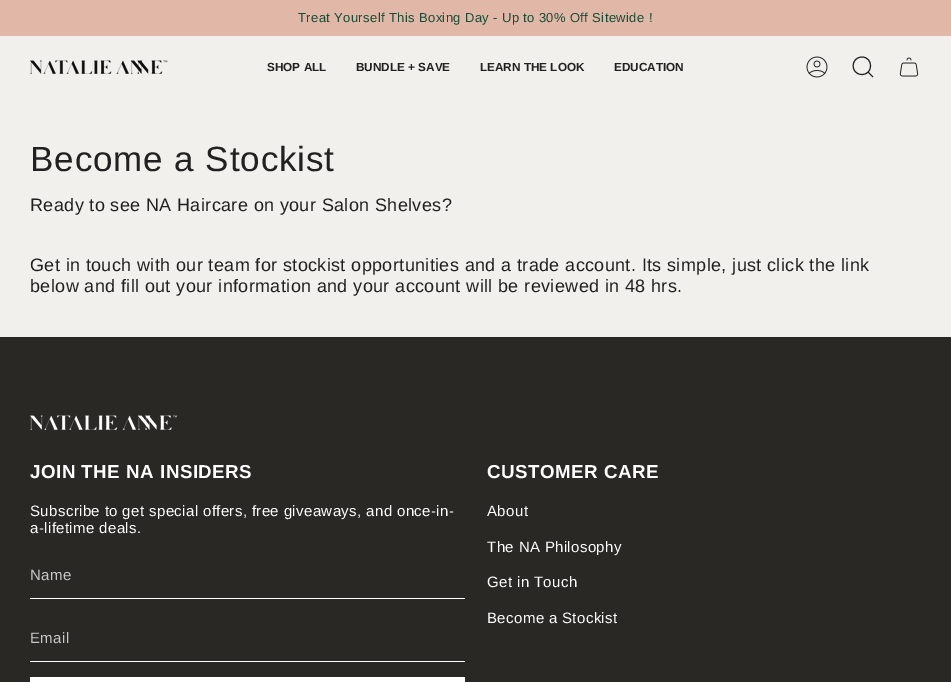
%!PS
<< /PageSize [951 682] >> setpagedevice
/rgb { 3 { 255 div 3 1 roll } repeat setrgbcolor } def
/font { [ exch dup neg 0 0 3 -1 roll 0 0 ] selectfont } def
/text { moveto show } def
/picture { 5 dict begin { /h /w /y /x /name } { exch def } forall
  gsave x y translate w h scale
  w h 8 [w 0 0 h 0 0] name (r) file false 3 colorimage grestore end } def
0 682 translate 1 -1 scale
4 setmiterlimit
241 240 236 rgb
0 0 951 682 rectfill
225 183 167 rgb
0 0 951 36 rectfill
(img_01.rgb) 30 60 138 14 picture
(img_02.rgb) 806 56 22 22 picture
33 33 33 rgb
862 57 moveto 11.5 0 11.5 18 -0.5 17.5 rcurveto -11.5 -0.5 -11 -17.5 0.5 -17.5 rcurveto closepath 868 72 moveto 5 5 rlineto stroke
(img_03.rgb) 899 57 20 20 picture
42 40 37 rgb
0 337 951 345 rectfill
(img_04.rgb) 30 415 148 15 picture
255 255 255 rgb
30 598 435 1 rectfill
30 661 435 1 rectfill
30 677 435 5 rectfill
/LiberationSans-Regular 13 font
23 76 54 rgb
298 22 moveto 0.38 0 (Treat Yourself This Boxing Day - Up to 30% Off Sitewide !) ashow
/LiberationSans-Bold 11.75 font
33 33 33 rgb
(SHOP ALL) 267 71 text
(BUNDLE + SAVE) 356 71 text
(LEARN THE LOOK) 480 71 text
(EDUCATION) 614 71 text
/LiberationSans-Regular 35 font
30 171 moveto 0.9 0 (Become a Stockist) ashow
/LiberationSans-Regular 18 font
30 211 moveto 0.38 0 (Ready to see NA Haircare on your Salon Shelves?) ashow
30 271 moveto 0.38 0 (Get in touch with our team for stockist opportunities and a trade account. Its simple, just click the link) ashow
30 292 moveto 0.38 0 (below and fill out your information and your account will be reviewed in 48 hrs.) ashow
/LiberationSans-Bold 18.75 font
255 255 255 rgb
30 478 moveto 0.5 0 (JOIN THE NA INSIDERS) ashow
/LiberationSans-Regular 15 font
30 516 moveto 0.38 0 (Subscribe to get special offers, free giveaways, and once-in-) ashow
30 533 moveto 0.38 0 (a-lifetime deals.) ashow
202 201 201 rgb
30 580 moveto 0.38 0 (Name) ashow
30 643 moveto 0.38 0 (Email) ashow
/LiberationSans-Bold 18.75 font
255 255 255 rgb
487 478 moveto 0.5 0 (CUSTOMER CARE) ashow
/LiberationSans-Regular 15 font
487 516 moveto 0.38 0 (About) ashow
487 552 moveto 0.38 0 (The NA Philosophy) ashow
487 587 moveto 0.38 0 (Get in Touch) ashow
487 623 moveto 0.38 0 (Become a Stockist) ashow
showpage
